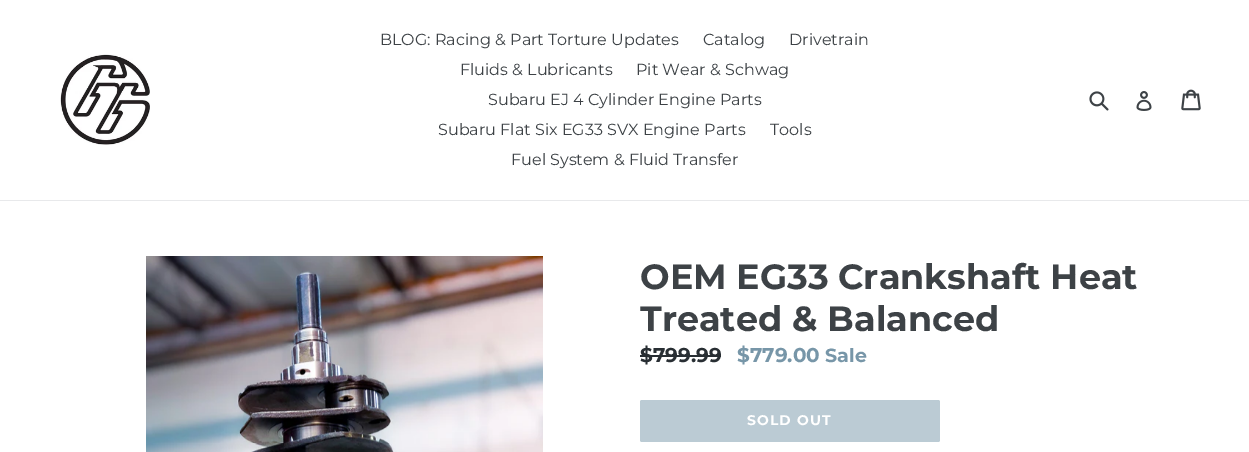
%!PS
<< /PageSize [1249 452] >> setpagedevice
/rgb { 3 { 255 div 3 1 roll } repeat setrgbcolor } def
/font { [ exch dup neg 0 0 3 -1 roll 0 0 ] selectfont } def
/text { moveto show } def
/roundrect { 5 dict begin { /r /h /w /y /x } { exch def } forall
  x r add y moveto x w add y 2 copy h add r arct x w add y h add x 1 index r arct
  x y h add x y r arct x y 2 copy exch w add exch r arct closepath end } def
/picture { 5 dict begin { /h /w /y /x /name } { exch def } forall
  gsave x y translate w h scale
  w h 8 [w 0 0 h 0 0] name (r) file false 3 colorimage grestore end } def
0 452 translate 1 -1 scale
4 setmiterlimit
255 255 255 rgb
0 0 1249 452 rectfill
232 233 235 rgb
0 200 1249 1 rectfill
(img_01.rgb) 60 54 90 91 picture
(img_02.rgb) 1089 91 20 20 picture
(img_03.rgb) 1136 91 16 20 picture
(img_04.rgb) 1181 89 20 22 picture
(img_05.rgb) 146 256 397 196 picture
40 46 51 rgb
640 355 81 2 rectfill
187 203 212 rgb
640 400 300 42 2 roundrect fill
/Montserrat-Regular 16 font
61 66 70 rgb
(BLOG: Racing & Part Torture Updates) 380 45 text
(Catalog) 703 45 text
(Drivetrain) 789 45 text
(Fluids & Lubricants) 460 75 text
(Pit Wear & Schwag) 636 75 text
(Subaru EJ 4 Cylinder Engine Parts) 488 105 text
(Subaru Flat Six EG33 SVX Engine Parts) 438 135 text
(Tools) 770 135 text
(Fuel System & Fluid Transfer) 511 165 text
/Montserrat-Bold 35 font
(OEM EG33 Crankshaft Heat) 640 289 text
(Treated & Balanced) 640 331 text
/Montserrat-Bold 20 font
40 46 51 rgb
($799.99) 640 362 text
119 150 168 rgb
($779.00) 737 362 text
/Montserrat-Bold 19 font
(Sale) 825 362 text
/Montserrat-Bold 14 font
255 255 255 rgb
747 425 moveto 1 0 (SOLD OUT) ashow
showpage
